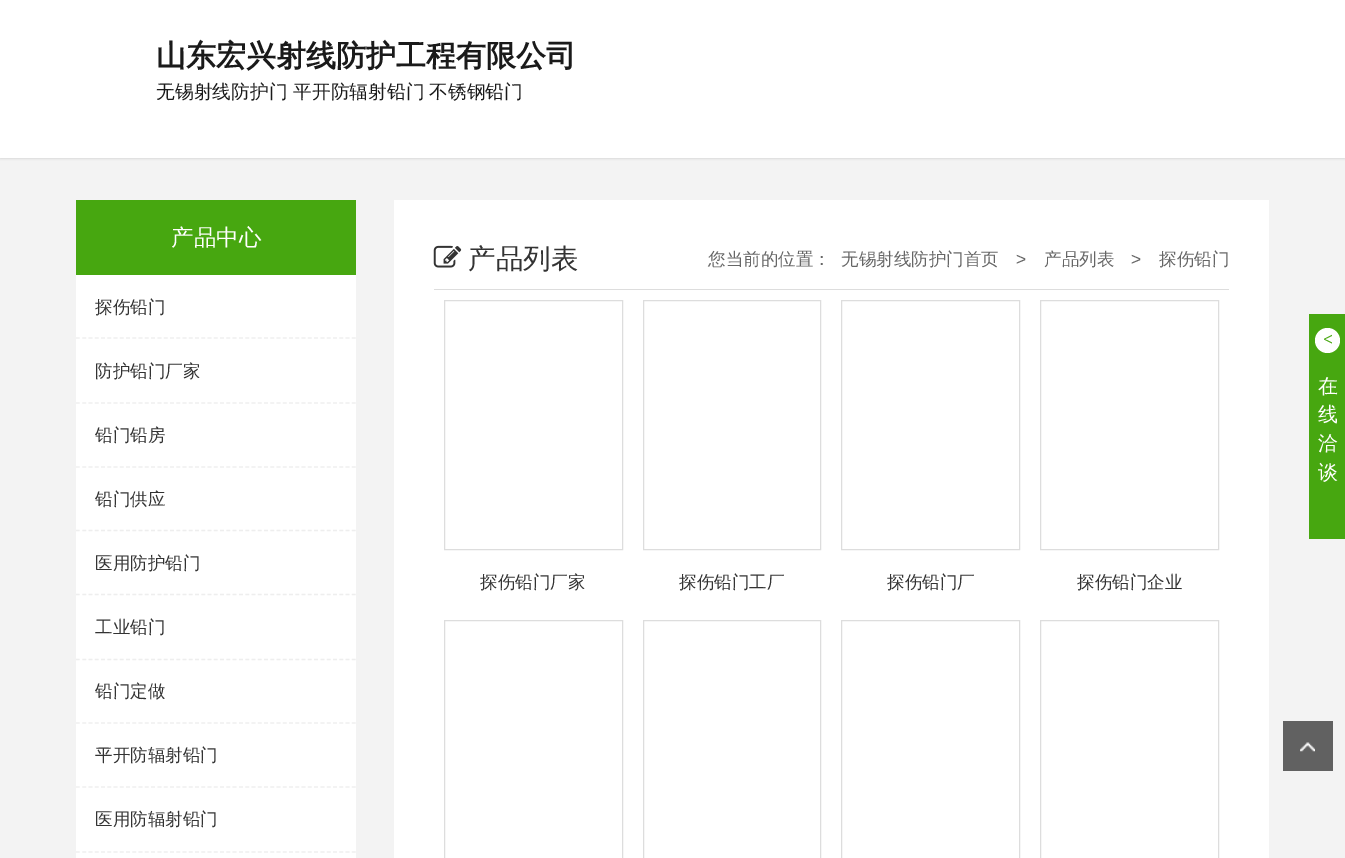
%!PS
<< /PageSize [1345 858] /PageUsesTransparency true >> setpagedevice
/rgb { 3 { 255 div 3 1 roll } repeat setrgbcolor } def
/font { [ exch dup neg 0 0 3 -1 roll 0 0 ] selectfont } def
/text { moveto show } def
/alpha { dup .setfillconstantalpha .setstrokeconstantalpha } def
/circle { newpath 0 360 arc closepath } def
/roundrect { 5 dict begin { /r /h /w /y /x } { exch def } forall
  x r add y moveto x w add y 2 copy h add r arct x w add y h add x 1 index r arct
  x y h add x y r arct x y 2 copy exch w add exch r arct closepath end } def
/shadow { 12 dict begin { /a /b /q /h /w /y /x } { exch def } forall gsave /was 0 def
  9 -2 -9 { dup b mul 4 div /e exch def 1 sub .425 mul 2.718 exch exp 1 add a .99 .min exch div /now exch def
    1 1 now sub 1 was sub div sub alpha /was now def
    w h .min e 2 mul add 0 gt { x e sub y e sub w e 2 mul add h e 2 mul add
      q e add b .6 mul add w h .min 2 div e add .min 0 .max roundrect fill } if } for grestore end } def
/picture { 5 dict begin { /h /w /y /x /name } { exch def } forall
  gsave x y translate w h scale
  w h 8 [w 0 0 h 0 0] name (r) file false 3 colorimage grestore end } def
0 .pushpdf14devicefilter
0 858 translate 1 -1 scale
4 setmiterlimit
243 243 243 rgb
0 0 1345 858 rectfill
0 0 0 rgb
0 1 1345 158 0 1 0.1 shadow
255 255 255 rgb
0 0 1345 158 rectfill
76 275 280 583 rectfill
71 167 16 rgb
76 200 280 75 rectfill
238 238 238 rgb
1.2 setlinewidth
[3.75 2.52] 0 setdash
76 338 moveto 280 0 rlineto stroke
76 403 moveto 280 0 rlineto stroke
76 467 moveto 280 0 rlineto stroke
76 530.5 moveto 280 0 rlineto stroke
76 594.5 moveto 280 0 rlineto stroke
76 659.5 moveto 280 0 rlineto stroke
76 723 moveto 280 0 rlineto stroke
76 787 moveto 280 0 rlineto stroke
76 852 moveto 280 0 rlineto stroke
255 255 255 rgb
394 200 875 658 rectfill
221 221 221 rgb
434 289 795 1 rectfill
(img_01.rgb) 433 245 29 23 picture
1 setlinewidth
[] 0 setdash
444.5 300.5 178 249 rectstroke
643.5 300.5 177 249 rectstroke
841.5 300.5 178 249 rectstroke
1040.5 300.5 178 249 rectstroke
444.5 620.5 178 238 rectstroke
643.5 620.5 177 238 rectstroke
841.5 620.5 178 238 rectstroke
1040.5 620.5 178 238 rectstroke
71 167 16 rgb
1309 314 36 225 rectfill
255 255 255 rgb
1327.5 340.5 12.5 circle fill
97 97 97 rgb
1283 721 50 50 rectfill
(img_02.rgb) 1300 742 15 10 picture
/WenQuanYiZenHei-Bold 30 font
26 26 26 rgb
(山东宏兴射线防护工程有限公司) 156 66 text
/WenQuanYiZenHei-Medium 18.75 font
(无锡射线防护门) 156 98 text
(平开防辐射铅门) 293 98 text
(不锈钢铅门) 429 98 text
/WenQuanYiZenHei-Medium 22.5 font
255 255 255 rgb
(产品中心) 171 245 text
/WenQuanYiZenHei-Medium 17.5 font
51 51 51 rgb
(探伤铅门) 95 313 text
(防护铅门厂家) 95 377 text
(铅门铅房) 95 441 text
(铅门供应) 95 505 text
(医用防护铅门) 95 569 text
(工业铅门) 95 633 text
(铅门定做) 95 697 text
(平开防辐射铅门) 95 761 text
(医用防辐射铅门) 95 825 text
/WenQuanYiZenHei-Medium 27.5 font
(产品列表) 468 268 text
/WenQuanYiZenHei-Medium 17.5 font
102 102 102 rgb
(您当前的位置：) 708 265 text
(无锡射线防护门首页) 841 265 text
/LiberationSans-Regular 17.5 font
(>) 1016 265 text
/WenQuanYiZenHei-Medium 17.5 font
(产品列表) 1044 265 text
/LiberationSans-Regular 17.5 font
(>) 1131 265 text
/WenQuanYiZenHei-Medium 17.5 font
(探伤铅门) 1159 265 text
51 51 51 rgb
(探伤铅门厂家) 480 588 text
(探伤铅门工厂) 679 588 text
(探伤铅门厂) 887 588 text
(探伤铅门企业) 1077 588 text
/LiberationSerif-Bold 17.5 font
71 167 16 rgb
(<) 1323 345 text
/WenQuanYiZenHei-Medium 20 font
255 255 255 rgb
(在) 1318 393 text
(线) 1318 421 text
(洽) 1318 450 text
(谈) 1318 479 text
.poppdf14devicefilter showpage
